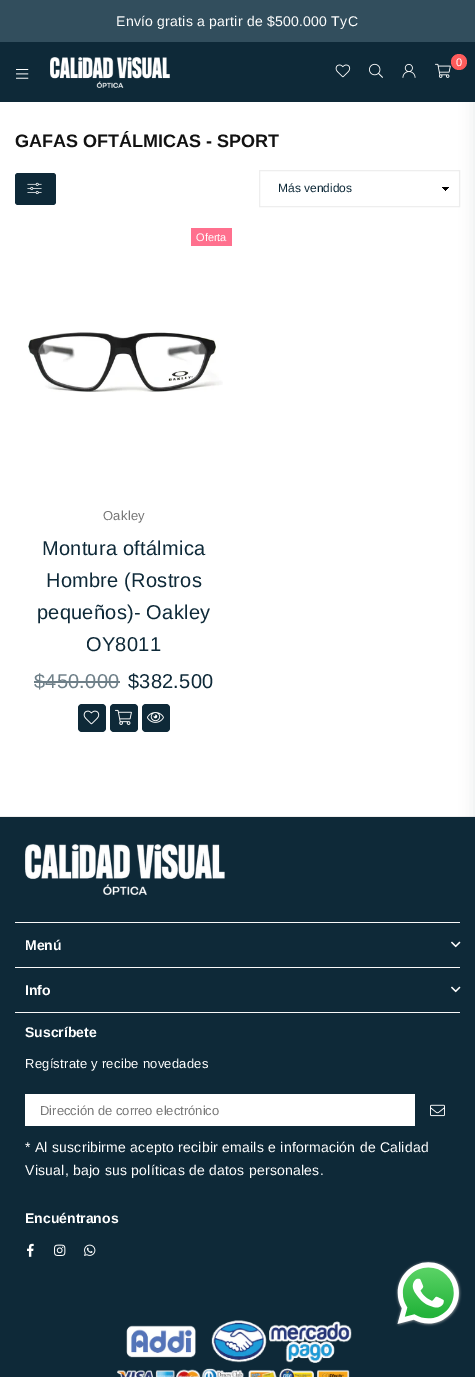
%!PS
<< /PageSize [475 1377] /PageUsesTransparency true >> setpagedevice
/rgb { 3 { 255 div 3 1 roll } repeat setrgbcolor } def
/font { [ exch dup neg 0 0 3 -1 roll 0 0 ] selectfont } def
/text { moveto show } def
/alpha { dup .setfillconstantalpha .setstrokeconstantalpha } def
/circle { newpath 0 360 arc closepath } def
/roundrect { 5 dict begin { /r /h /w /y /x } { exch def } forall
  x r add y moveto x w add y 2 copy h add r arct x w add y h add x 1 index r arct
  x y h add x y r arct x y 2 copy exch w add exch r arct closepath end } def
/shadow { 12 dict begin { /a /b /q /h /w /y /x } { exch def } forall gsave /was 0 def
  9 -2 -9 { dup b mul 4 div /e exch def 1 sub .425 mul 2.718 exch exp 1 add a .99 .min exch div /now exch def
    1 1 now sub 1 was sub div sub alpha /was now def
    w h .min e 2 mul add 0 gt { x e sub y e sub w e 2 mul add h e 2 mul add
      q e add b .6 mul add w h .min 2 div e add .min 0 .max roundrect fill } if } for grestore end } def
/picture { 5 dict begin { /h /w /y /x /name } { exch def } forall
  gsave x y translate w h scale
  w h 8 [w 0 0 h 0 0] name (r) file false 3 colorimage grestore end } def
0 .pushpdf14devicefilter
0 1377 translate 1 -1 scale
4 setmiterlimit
255 255 255 rgb
0 0 475 1377 rectfill
50 78 93 rgb
0 0 475 42 rectfill
14 41 56 rgb
0 42 475 60 rectfill
255 91 91 rgb
459 62 8 circle fill
(img_08.rgb) 442 187 7 4 picture
238 238 238 rgb
259.5 170.5 200 36 rectstroke
14 41 56 rgb
0 817 475 560 rectfill
238 238 238 rgb
0 816 475 1 rectfill
249 249 249 rgb
15 922 445 1 rectfill
(img_14.rgb) 451 941 10 7 picture
15 967 445 1 rectfill
(img_14.rgb) 451 986 10 7 picture
15 1012 445 1 rectfill
14 41 56 rgb
475 0 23 1377 0 7.5 0.1 shadow
(img_01.rgb) 50 57 120 31 picture
(img_02.rgb) 335 64 16 14 picture
(img_03.rgb) 369 63 14 15 picture
(img_04.rgb) 402 63 14 15 picture
(img_05.rgb) 435 63 16 15 picture
(img_06.rgb) 16 69 13 10 picture
15 173 41 32 3 roundrect fill
(img_07.rgb) 27 182 15 13 picture
255 112 142 rgb
191 228 41 18 rectfill
(img_09.rgb) 28 332 195 60 picture
110 127 136 rgb
34 681 86 2 rectfill
14 41 56 rgb
78 704 28 28 4 roundrect fill
(img_10.rgb) 83 710 17 15 picture
110 704 28 28 4 roundrect fill
(img_11.rgb) 115 709 17 16 picture
142 704 28 28 4 roundrect fill
(img_12.rgb) 147 712 17 11 picture
(img_13.rgb) 25 844 200 51 picture
255 255 255 rgb
25 1094 390 32 rectfill
(img_15.rgb) 430 1104 15 13 picture
(img_16.rgb) 27 1243 7 14 picture
(img_17.rgb) 54 1244 12 12 picture
(img_18.rgb) 84 1244 12 12 picture
(img_19.rgb) 117 1320 235 57 picture
(img_20.rgb) 395 1260 67 67 picture
/LiberationSans-Regular 14 font
116 26 moveto 0.25 0 (Envío gratis a partir de $500.000 TyC) ashow
/LiberationSans-Regular 11 font
456 66 moveto 0.25 0 (0) ashow
/LiberationSans-Bold 18 font
17 17 17 rgb
(GAFAS OFTÁLMICAS - SPORT) 15 147 text
/LiberationSans-Regular 12 font
14 41 56 rgb
(Más vendidos) 278 192 text
/LiberationSans-Regular 11 font
255 255 255 rgb
(Oferta) 196 241 text
/LiberationSans-Regular 13 font
119 119 119 rgb
103 520 moveto 0.25 0 (Oakley) ashow
/LiberationSans-Regular 20 font
14 41 56 rgb
42 555 moveto 0.25 0 (Montura oftálmica) ashow
46 587 moveto 0.25 0 (Hombre \(Rostros) ashow
37 619 moveto 0.25 0 (pequeños\)- Oakley) ashow
86 651 moveto 0.25 0 (OY8011) ashow
110 127 136 rgb
34 688 moveto 0.25 0 ($450.000) ashow
14 41 56 rgb
128 688 moveto 0.25 0 ($382.500) ashow
/LiberationSans-Bold 14 font
255 255 255 rgb
(Menú) 25 950 text
(Info) 25 995 text
(Suscríbete) 25 1037 text
/LiberationSans-Regular 13 font
25 1068 moveto 0.25 0 (Regístrate y recibe novedades) ashow
119 119 119 rgb
(Dirección de correo electrónico) 40 1115 text
/LiberationSans-Regular 14 font
255 255 255 rgb
25 1152 moveto 0.25 0 (* Al suscribirme acepto recibir emails e información de Calidad) ashow
25 1175 moveto 0.25 0 (Visual, bajo sus políticas de datos personales.) ashow
/LiberationSans-Bold 14 font
(Encuéntranos) 25 1223 text
.poppdf14devicefilter showpage
